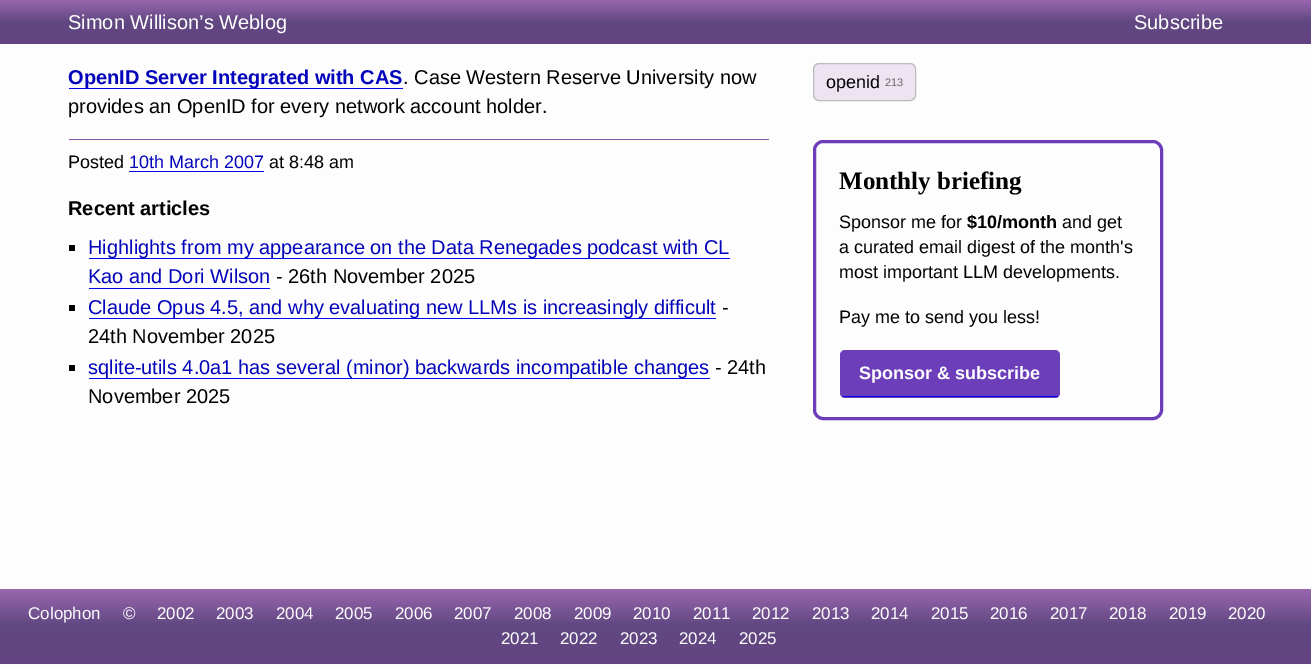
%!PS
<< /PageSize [1311 669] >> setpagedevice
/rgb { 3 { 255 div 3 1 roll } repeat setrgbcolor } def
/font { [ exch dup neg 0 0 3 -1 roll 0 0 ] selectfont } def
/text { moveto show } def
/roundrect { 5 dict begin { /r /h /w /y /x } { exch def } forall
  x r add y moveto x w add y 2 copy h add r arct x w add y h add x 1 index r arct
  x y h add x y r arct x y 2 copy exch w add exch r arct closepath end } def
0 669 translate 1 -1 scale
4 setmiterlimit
253 253 253 rgb
0 0 1311 669 rectfill
gsave 0 0 moveto 1311 0 rlineto 0 44 rlineto -1311 0 rlineto closepath clip newpath
<< /ShadingType 2 /ColorSpace /DeviceRGB /Coords [656 0 656 44] /Extend [true true] /Function << /FunctionType 3 /Domain [0 1] /Functions [<< /FunctionType 2 /Domain [0 1] /C0 [0.604 0.404 0.686] /C1 [0.376 0.282 0.506] /N 1 >> << /FunctionType 2 /Domain [0 1] /C0 [0.376 0.282 0.506] /C1 [0.392 0.263 0.51] /N 1 >>] /Bounds [0.49] /Encode [0 1 0 1] >> >> shfill grestore
0 0 238 rgb
69 88 334 1 rectfill
138 85 168 rgb
69 139 700 1 rectfill
0 0 238 rgb
129 171 135 1 rectfill
0 0 0 rgb
69 245 6 6 rectfill
0 0 238 rgb
89 258 641 1 rectfill
89 288 181 1 rectfill
0 0 0 rgb
69 305 6 6 rectfill
0 0 238 rgb
89 318 627 1 rectfill
0 0 0 rgb
69 365 6 6 rectfill
0 0 238 rgb
89 378 621 1 rectfill
237 227 241 rgb
813.5 63.5 102 37 5.5 roundrect gsave fill grestore
187 187 187 rgb
stroke
108 62 185 rgb
3 setlinewidth
814.5 141.5 347 277 8.5 roundrect stroke
840 350 220 48 5 roundrect fill
0 0 238 rgb
843 396 215 1 rectfill
gsave 0 589 moveto 1311 0 rlineto 0 75 rlineto -1311 0 rlineto closepath clip newpath
<< /ShadingType 2 /ColorSpace /DeviceRGB /Coords [656 589 656 664] /Extend [true true] /Function << /FunctionType 3 /Domain [0 1] /Functions [<< /FunctionType 2 /Domain [0 1] /C0 [0.604 0.404 0.686] /C1 [0.376 0.282 0.506] /N 1 >> << /FunctionType 2 /Domain [0 1] /C0 [0.376 0.282 0.506] /C1 [0.392 0.263 0.51] /N 1 >>] /Bounds [0.49] /Encode [0 1 0 1] >> >> shfill grestore
/LiberationSans-Regular 20 font
255 255 255 rgb
(Simon Willison’s Weblog) 68 29 text
(Subscribe) 1134 29 text
/LiberationSans-Bold 20 font
3 3 187 rgb
(OpenID Server Integrated with CAS) 68 84 text
/LiberationSans-Regular 20 font
0 0 0 rgb
(. Case Western Reserve University now) 403 84 text
(provides an OpenID for every network account holder.) 68 113 text
/LiberationSans-Regular 18 font
(Posted) 68 168 text
3 3 187 rgb
(10th March 2007) 129 168 text
0 0 0 rgb
(at 8:48 am) 269 168 text
/LiberationSans-Bold 20 font
(Recent articles) 68 215 text
/LiberationSans-Regular 20 font
3 3 187 rgb
(Highlights from my appearance on the Data Renegades podcast with CL) 88 254 text
(Kao and Dori Wilson) 88 283 text
0 0 0 rgb
(- 26th November 2025) 276 283 text
3 3 187 rgb
(Claude Opus 4.5, and why evaluating new LLMs is increasingly difficult) 88 314 text
0 0 0 rgb
(-) 722 314 text
(24th November 2025) 88 343 text
3 3 187 rgb
(sqlite-utils 4.0a1 has several \(minor\) backwards incompatible changes) 88 374 text
0 0 0 rgb
(- 24th) 715 374 text
(November 2025) 88 403 text
/LiberationSans-Regular 18 font
(openid) 826 88 text
/LiberationSans-Regular 11 font
102 102 102 rgb
(213) 885 86 text
/LiberationSerif-Bold 25 font
0 0 0 rgb
(Monthly briefing) 839 189 text
/LiberationSans-Regular 18 font
(Sponsor me for) 839 228 text
/LiberationSans-Bold 18 font
($10/month) 967 228 text
/LiberationSans-Regular 18 font
(and get) 1062 228 text
(a curated email digest of the month's) 839 253 text
(most important LLM developments.) 839 278 text
(Pay me to send you less!) 839 323 text
/LiberationSans-Bold 18 font
255 255 255 rgb
(Sponsor & subscribe) 859 379 text
/LiberationSans-Regular 17 font
(Colophon) 28 619 text
(©) 123 619 text
(2002) 157 619 text
(2003) 216 619 text
(2004) 276 619 text
(2005) 335 619 text
(2006) 395 619 text
(2007) 454 619 text
(2008) 514 619 text
(2009) 574 619 text
(2010) 633 619 text
(2011) 693 619 text
(2012) 752 619 text
(2013) 812 619 text
(2014) 871 619 text
(2015) 931 619 text
(2016) 990 619 text
(2017) 1050 619 text
(2018) 1109 619 text
(2019) 1169 619 text
(2020) 1228 619 text
(2021) 501 644 text
(2022) 560 644 text
(2023) 620 644 text
(2024) 679 644 text
(2025) 739 644 text
showpage
